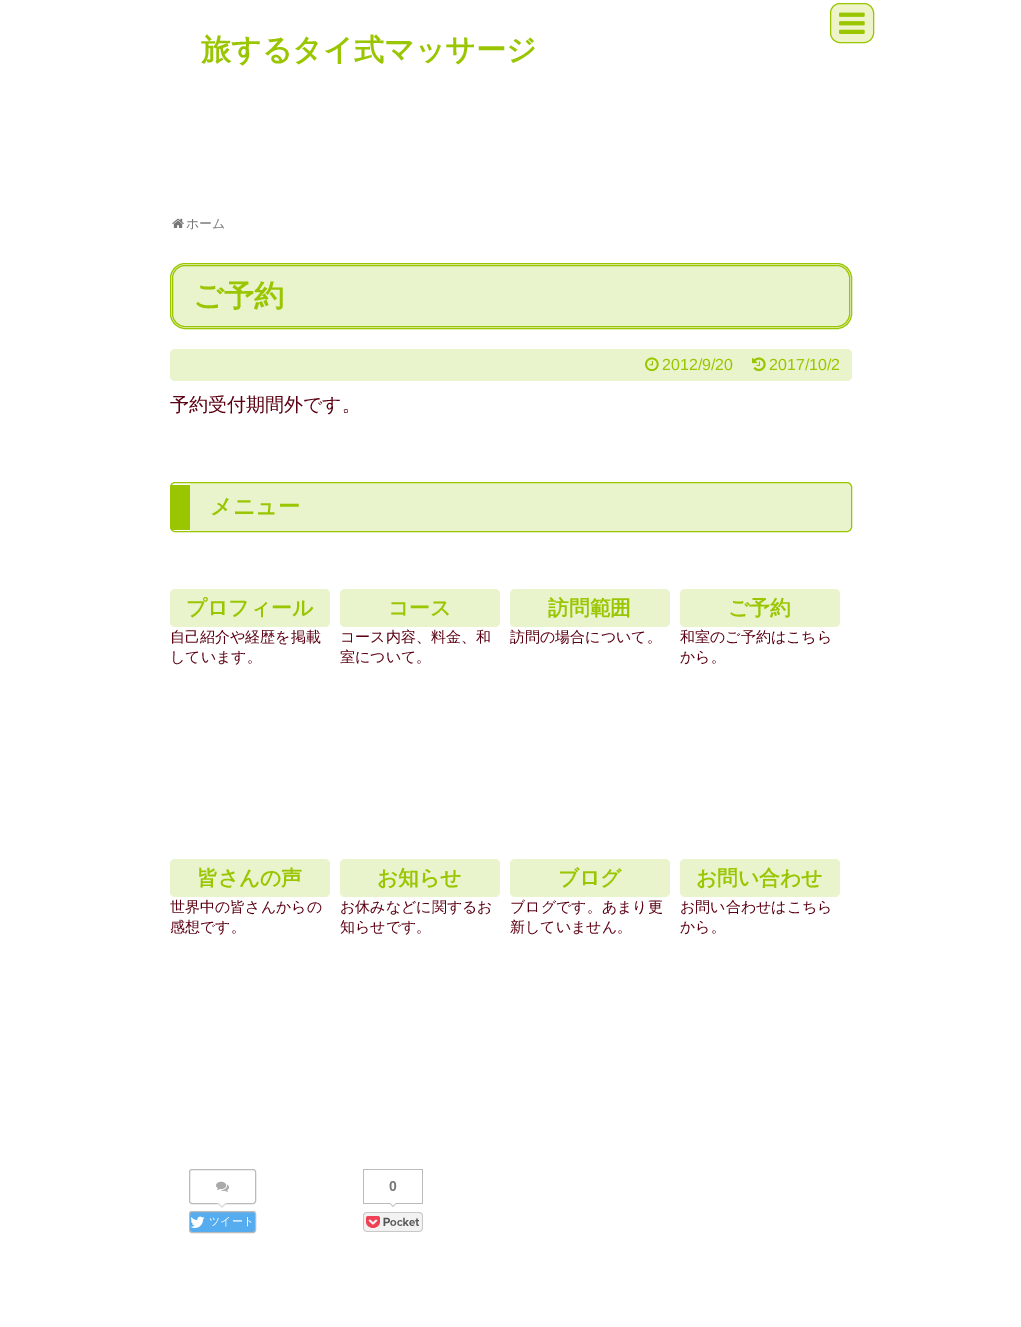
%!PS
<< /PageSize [1021 1327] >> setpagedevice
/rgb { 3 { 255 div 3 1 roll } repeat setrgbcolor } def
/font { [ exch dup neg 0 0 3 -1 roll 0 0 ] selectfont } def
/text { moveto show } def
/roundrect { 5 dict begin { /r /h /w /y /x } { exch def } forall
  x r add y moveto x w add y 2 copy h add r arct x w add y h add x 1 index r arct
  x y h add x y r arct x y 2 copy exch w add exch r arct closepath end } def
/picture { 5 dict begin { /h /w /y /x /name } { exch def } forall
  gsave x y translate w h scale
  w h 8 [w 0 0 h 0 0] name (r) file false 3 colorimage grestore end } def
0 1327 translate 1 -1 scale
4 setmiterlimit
255 255 255 rgb
0 0 1021 1327 rectfill
238 243 202 rgb
830.5 3.5 43 39 9.5 roundrect gsave fill grestore
153 198 0 rgb
stroke
(img_01.rgb) 839 12 26 22 picture
(img_02.rgb) 172 218 12 10 picture
234 244 204 rgb
170.5 263.5 681 65 14.5 roundrect gsave fill grestore
153 198 0 rgb
stroke
172.5 265.5 677 61 12.5 roundrect stroke
234 244 204 rgb
170 349 682 32 5 roundrect fill
(img_03.rgb) 645 357 14 15 picture
(img_04.rgb) 752 357 14 15 picture
190 483 moveto 657 0 rlineto 2 0 4 2 4 4 rcurveto 0 40 rlineto 0 2 -2 4 -4 4 rcurveto -657 0 rlineto closepath fill
153 198 0 rgb
170.5 482.5 681 49 4.5 roundrect stroke
171 485 19 45 rectfill
234 244 204 rgb
170 589 160 38 5 roundrect fill
340 589 160 38 5 roundrect fill
510 589 160 38 5 roundrect fill
680 589 160 38 5 roundrect fill
170 859 160 38 5 roundrect fill
340 859 160 38 5 roundrect fill
510 859 160 38 5 roundrect fill
680 859 160 38 5 roundrect fill
187 187 187 rgb
189.5 1169.5 66 34 2.5 roundrect stroke
(img_05.rgb) 216 1181 13 11 picture
221 221 221 rgb
217 1203 moveto 10 0 rlineto -5 5 rlineto closepath fill
255 255 255 rgb
219 1203 moveto 6 0 rlineto -3 3 rlineto closepath fill
85 172 238 rgb
189.5 1211.5 66 21 2.5 roundrect gsave fill grestore
187 187 187 rgb
stroke
(img_06.rgb) 190 1216 15 12 picture
(img_07.rgb) 363 1169 60 63 picture
/WenQuanYiZenHei-Bold 30 font
153 198 0 rgb
(旅するタイ式マッサージ) 201 60 text
/WenQuanYiZenHei-Medium 13 font
119 119 119 rgb
(ホーム) 186 228 text
/WenQuanYiZenHei-Bold 30 font
153 198 0 rgb
(ご予約) 193 306 text
/LiberationSans-Regular 16 font
(2012/9/20) 662 370 text
(2017/10/2) 769 370 text
/WenQuanYiZenHei-Medium 19 font
91 0 18 rgb
(予約受付期間外です。) 170 411 text
/WenQuanYiZenHei-Bold 22 font
153 198 0 rgb
(メニュー) 210 514 text
/WenQuanYiZenHei-Bold 20.75 font
(プロフィール) 186 615 text
/WenQuanYiZenHei-Medium 15 font
91 0 18 rgb
(自己紹介や経歴を掲載) 170 642 text
(しています。) 170 662 text
/WenQuanYiZenHei-Bold 20.75 font
153 198 0 rgb
(コース) 388 615 text
/WenQuanYiZenHei-Medium 15 font
91 0 18 rgb
(コース内容、料金、和) 340 642 text
(室について。) 340 662 text
/WenQuanYiZenHei-Bold 20.75 font
153 198 0 rgb
(訪問範囲) 548 615 text
/WenQuanYiZenHei-Medium 15 font
91 0 18 rgb
(訪問の場合について。) 510 642 text
/WenQuanYiZenHei-Bold 20.75 font
153 198 0 rgb
(ご予約) 728 615 text
/WenQuanYiZenHei-Medium 15 font
91 0 18 rgb
(和室のご予約はこちら) 680 642 text
(から。) 680 662 text
/WenQuanYiZenHei-Bold 20.75 font
153 198 0 rgb
(皆さんの声) 197 885 text
/WenQuanYiZenHei-Medium 15 font
91 0 18 rgb
(世界中の皆さんからの) 170 912 text
(感想です。) 170 932 text
/WenQuanYiZenHei-Bold 20.75 font
153 198 0 rgb
(お知らせ) 377 885 text
/WenQuanYiZenHei-Medium 15 font
91 0 18 rgb
(お休みなどに関するお) 340 912 text
(知らせです。) 340 932 text
/WenQuanYiZenHei-Bold 20.75 font
153 198 0 rgb
(ブログ) 558 885 text
/WenQuanYiZenHei-Medium 15 font
91 0 18 rgb
(ブログです。あまり更) 510 912 text
(新していません。) 510 932 text
/WenQuanYiZenHei-Bold 20.75 font
153 198 0 rgb
(お問い合わせ) 696 885 text
/WenQuanYiZenHei-Medium 15 font
91 0 18 rgb
(お問い合わせはこちら) 680 912 text
(から。) 680 932 text
/WenQuanYiZenHei-Medium 11 font
255 255 255 rgb
(ツイート) 209 1225 text
showpage
